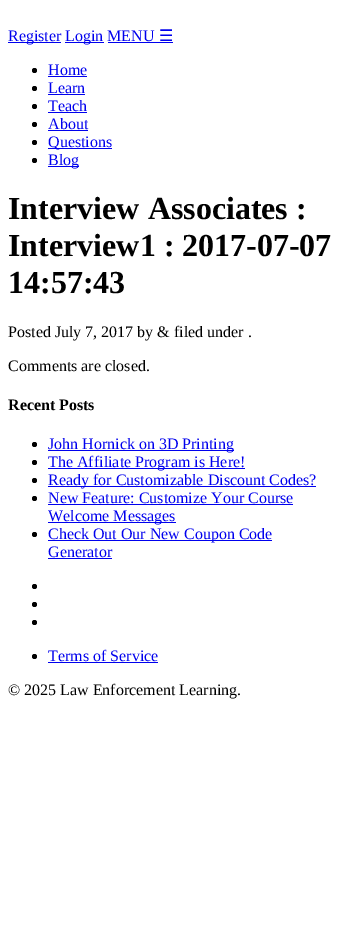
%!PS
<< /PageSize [342 952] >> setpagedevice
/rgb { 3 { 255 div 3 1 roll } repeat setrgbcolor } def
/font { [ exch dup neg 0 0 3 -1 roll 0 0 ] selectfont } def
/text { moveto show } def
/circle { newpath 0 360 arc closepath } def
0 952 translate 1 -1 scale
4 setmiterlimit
255 255 255 rgb
0 0 342 952 rectfill
0 0 238 rgb
8 42 53 1 rectfill
65 42 39 1 rectfill
108 42 65 1 rectfill
0 0 0 rgb
34.5 70.5 2.5 circle fill
0 0 238 rgb
48 76 39 1 rectfill
0 0 0 rgb
34.5 88.5 2.5 circle fill
0 0 238 rgb
48 94 37 1 rectfill
0 0 0 rgb
34.5 106.5 2.5 circle fill
0 0 238 rgb
48 112 39 1 rectfill
0 0 0 rgb
34.5 124.5 2.5 circle fill
0 0 238 rgb
48 130 40 1 rectfill
0 0 0 rgb
34.5 142.5 2.5 circle fill
0 0 238 rgb
48 148 64 1 rectfill
0 0 0 rgb
34.5 160.5 2.5 circle fill
0 0 238 rgb
48 166 31 1 rectfill
0 0 0 rgb
34.5 444.5 2.5 circle fill
0 0 238 rgb
48 450 186 1 rectfill
0 0 0 rgb
34.5 462.5 2.5 circle fill
0 0 238 rgb
48 468 197 1 rectfill
0 0 0 rgb
34.5 480.5 2.5 circle fill
0 0 238 rgb
48 486 268 1 rectfill
0 0 0 rgb
34.5 498.5 2.5 circle fill
0 0 238 rgb
48 504 245 1 rectfill
48 522 128 1 rectfill
0 0 0 rgb
34.5 534.5 2.5 circle fill
0 0 238 rgb
48 540 224 1 rectfill
48 558 64 1 rectfill
0 0 0 rgb
34.5 586.5 2.5 circle fill
34.5 604.5 2.5 circle fill
34.5 622.5 2.5 circle fill
34.5 656.5 2.5 circle fill
0 0 238 rgb
48 662 110 1 rectfill
/LiberationSerif-Regular 16 font
(Register) 8 41 text
(Login MENU) 65 41 text
/DejaVuSans-Regular 16 font
(☰) 159 41 text
/LiberationSerif-Regular 16 font
(Home) 48 75 text
(Learn) 48 93 text
(Teach) 48 111 text
(About) 48 129 text
(Questions) 48 147 text
(Blog) 48 165 text
/LiberationSerif-Bold 32 font
0 0 0 rgb
(Interview Associates :) 8 219 text
(Interview1 : 2017-07-07) 8 256 text
(14:57:43) 8 293 text
/LiberationSerif-Regular 16 font
(Posted July 7, 2017 by & filed under .) 8 337 text
(Comments are closed.) 8 371 text
/LiberationSerif-Bold 16 font
(Recent Posts) 8 410 text
/LiberationSerif-Regular 16 font
0 0 238 rgb
(John Hornick on 3D Printing) 48 449 text
(The Affiliate Program is Here!) 48 467 text
(Ready for Customizable Discount Codes?) 48 485 text
(New Feature: Customize Your Course) 48 503 text
(Welcome Messages) 48 521 text
(Check Out Our New Coupon Code) 48 539 text
(Generator) 48 557 text
(Terms of Service) 48 661 text
0 0 0 rgb
(© 2025 Law Enforcement Learning.) 8 695 text
showpage
